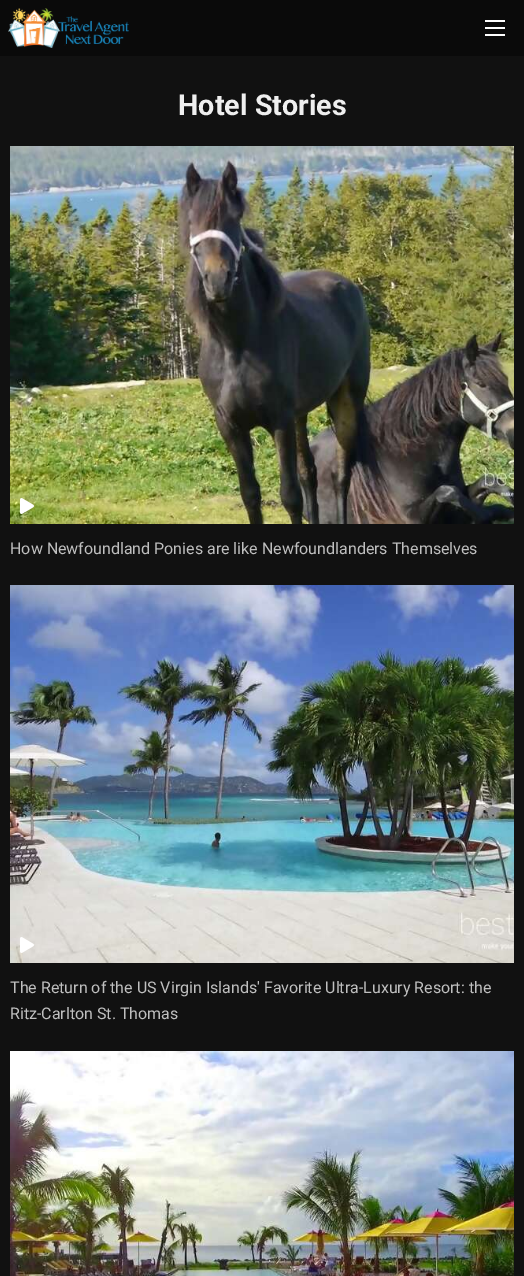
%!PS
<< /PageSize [524 1276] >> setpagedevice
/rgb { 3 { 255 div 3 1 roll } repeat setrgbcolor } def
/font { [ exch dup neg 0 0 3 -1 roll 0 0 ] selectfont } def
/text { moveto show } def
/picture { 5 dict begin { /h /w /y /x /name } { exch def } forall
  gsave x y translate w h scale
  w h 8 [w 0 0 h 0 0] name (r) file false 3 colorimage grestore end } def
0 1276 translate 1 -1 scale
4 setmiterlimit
17 17 17 rgb
0 0 524 1276 rectfill
10 10 10 rgb
0 0 524 56 rectfill
(img_01.rgb) 8 8 121 40 picture
254 254 254 rgb
485 34 20 2 rectfill
485 27 20 2 rectfill
485 20 20 2 rectfill
(img_02.rgb) 10 146 504 378 picture
(img_03.rgb) 20 498 14 16 picture
(img_04.rgb) 10 585 504 378 picture
(img_05.rgb) 20 937 14 16 picture
(img_06.rgb) 10 1051 504 225 picture
/Roboto-Bold 28.75 font
239 239 239 rgb
(Hotel Stories) 178 115 text
/Roboto-Regular 16 font
191 191 191 rgb
(How Newfoundland Ponies are like Newfoundlanders Themselves) 10 554 text
(The Return of the US Virgin Islands' Favorite Ultra-Luxury Resort: the) 10 993 text
(Ritz-Carlton St. Thomas) 10 1019 text
showpage
